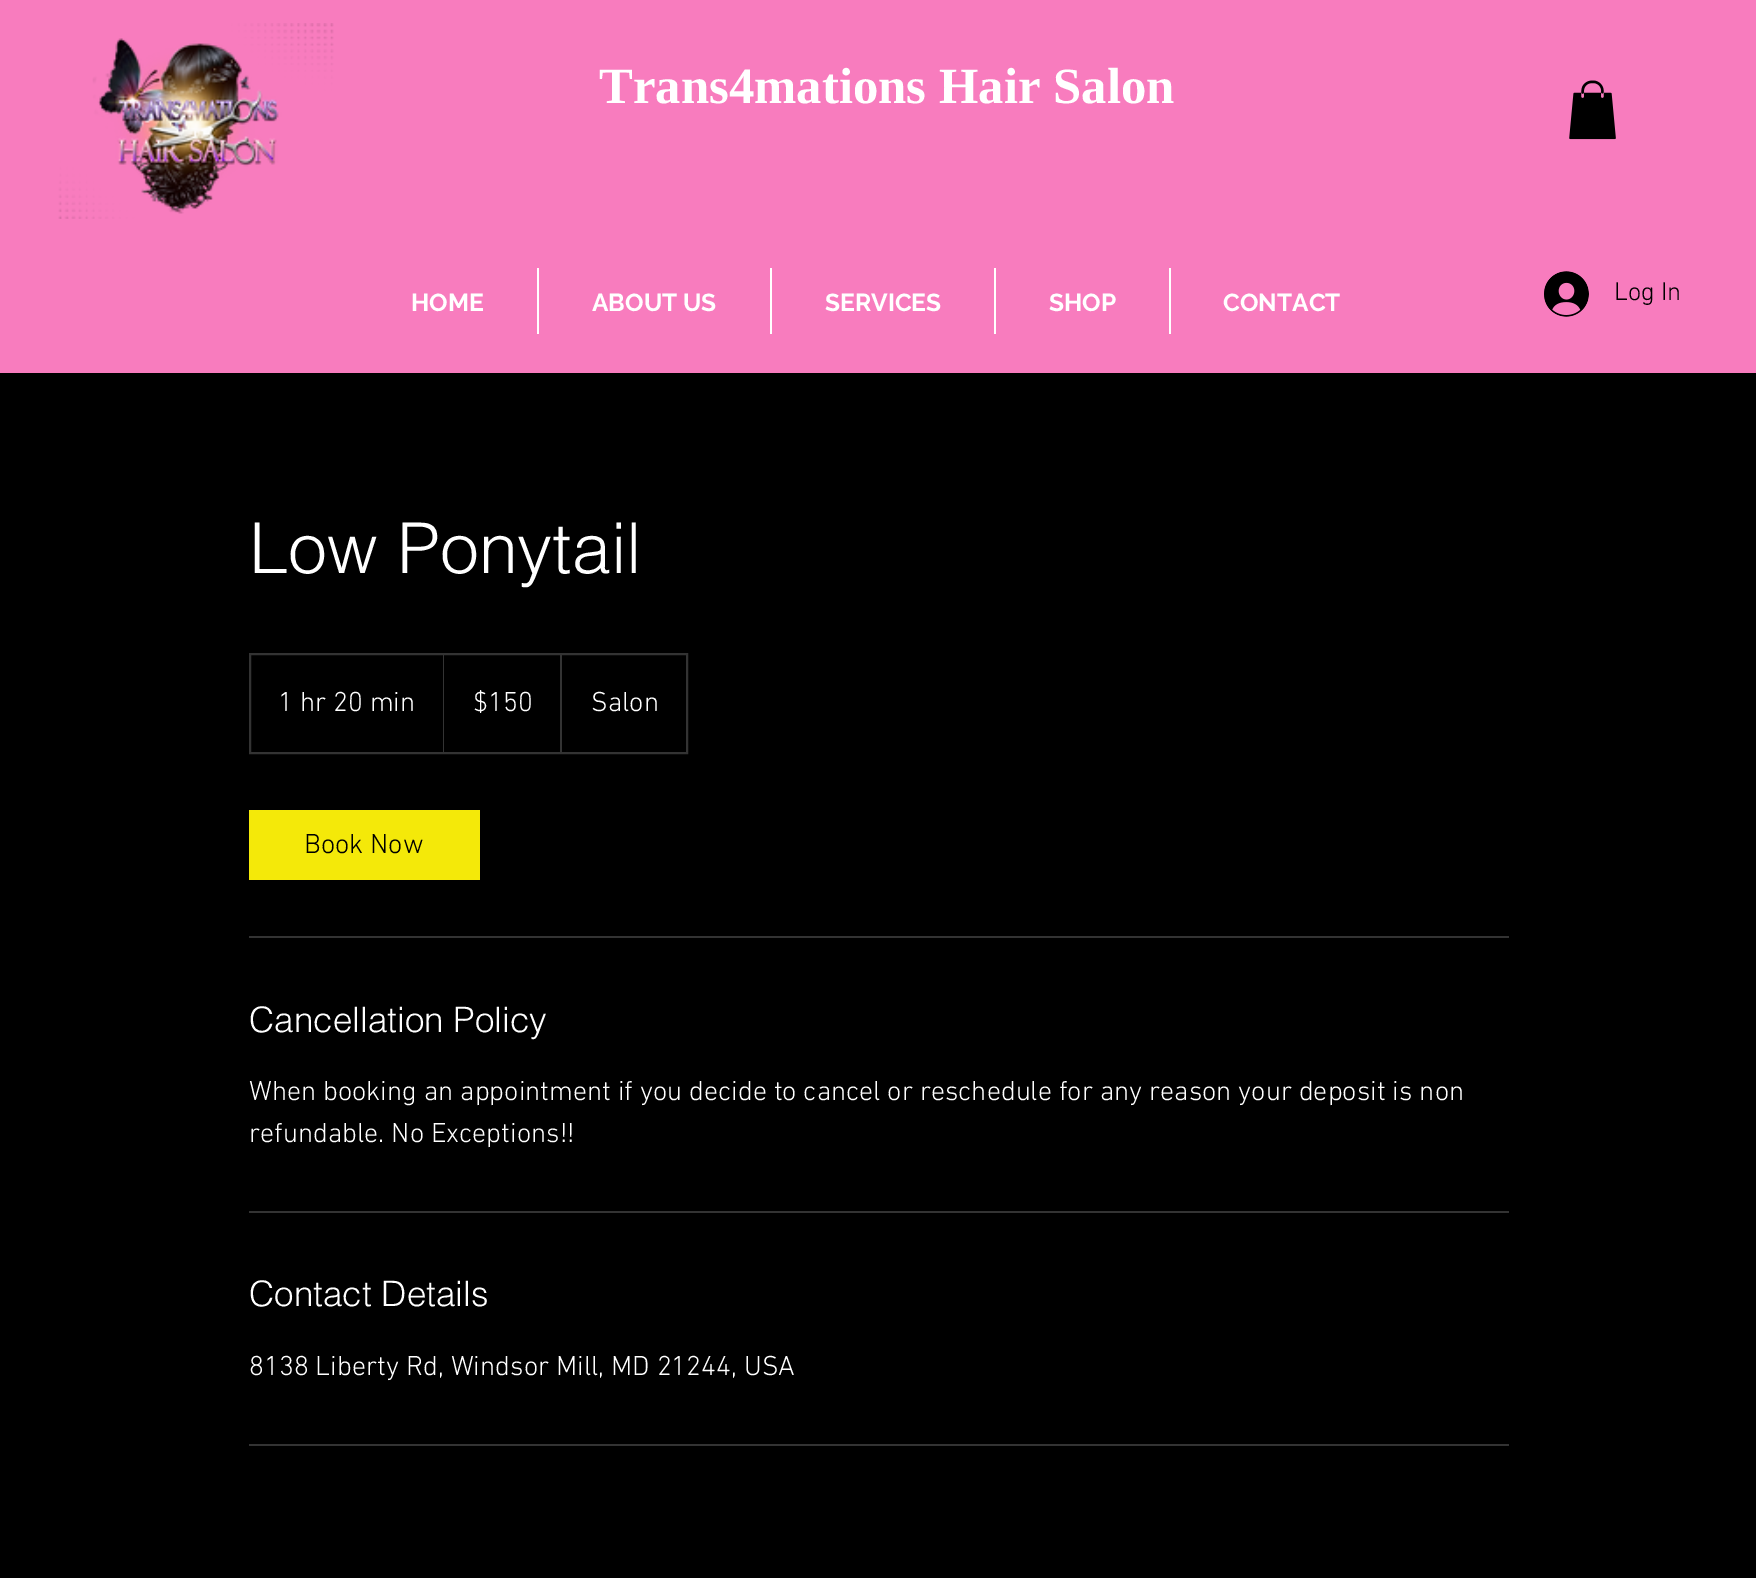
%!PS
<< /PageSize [1756 1578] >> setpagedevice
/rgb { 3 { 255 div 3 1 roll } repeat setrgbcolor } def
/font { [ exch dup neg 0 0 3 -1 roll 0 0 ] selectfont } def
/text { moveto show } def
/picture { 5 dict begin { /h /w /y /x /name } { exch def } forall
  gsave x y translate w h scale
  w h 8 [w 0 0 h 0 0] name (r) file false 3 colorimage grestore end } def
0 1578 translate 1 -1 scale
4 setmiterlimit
0 0 0 rgb
0 0 1756 1578 rectfill
248 124 190 rgb
0 0 1756 373 rectfill
(img_01.rgb) 58 23 276 196 picture
(img_02.rgb) 1569 80 47 60 picture
255 255 255 rgb
537 268 2 66 rectfill
770 268 2 66 rectfill
994 268 2 66 rectfill
1169 268 2 66 rectfill
(img_03.rgb) 1544 271 45 46 picture
51 51 51 rgb
2 setlinewidth
250 654 437 99 rectstroke
443 752 moveto 0 -99 rlineto 1 1 rlineto 0 98 rlineto closepath fill
gsave
250 655 436 98 rectclip
560 752 moveto 0 -99 rlineto 2 1 rlineto 0 98 rlineto closepath fill
grestore
244 233 9 rgb
249 810 231 70 rectfill
51 51 51 rgb
249 936 1260 2 rectfill
249 1211 1260 2 rectfill
249 1444 1260 2 rectfill
/LiberationSerif-Bold 50.75 font
255 255 255 rgb
(Trans4mations Hair Salon) 599 103 text
/Raleway-Bold 24.5 font
(HOME) 411 311 text
(ABOUT US) 592 311 text
(SERVICES) 825 311 text
(SHOP) 1049 311 text
(CONTACT) 1223 311 text
/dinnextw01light-Light 26 font
0 0 0 rgb
(Log In) 1614 300 text
/helvetica-Light 70 font
255 255 255 rgb
(Low Ponytail) 249 573 text
/dinnextw01light-Light 28 font
(1 hr 20 min) 278 711 text
($150) 473 711 text
(Salon) 591 711 text
0 0 0 rgb
(Book Now) 304 853 text
/helvetica-Light 35 font
255 255 255 rgb
(Cancellation Policy) 249 1032 text
/dinnextw01light-Light 28 font
(When booking an appointment if you decide to cancel or reschedule for any reason your deposit is non) 249 1100 text
(refundable. No Exceptions!!) 249 1142 text
/helvetica-Light 35 font
(Contact Details) 249 1306 text
/dinnextw01light-Light 28 font
(8138 Liberty Rd, Windsor Mill, MD 21244, USA) 249 1375 text
showpage
